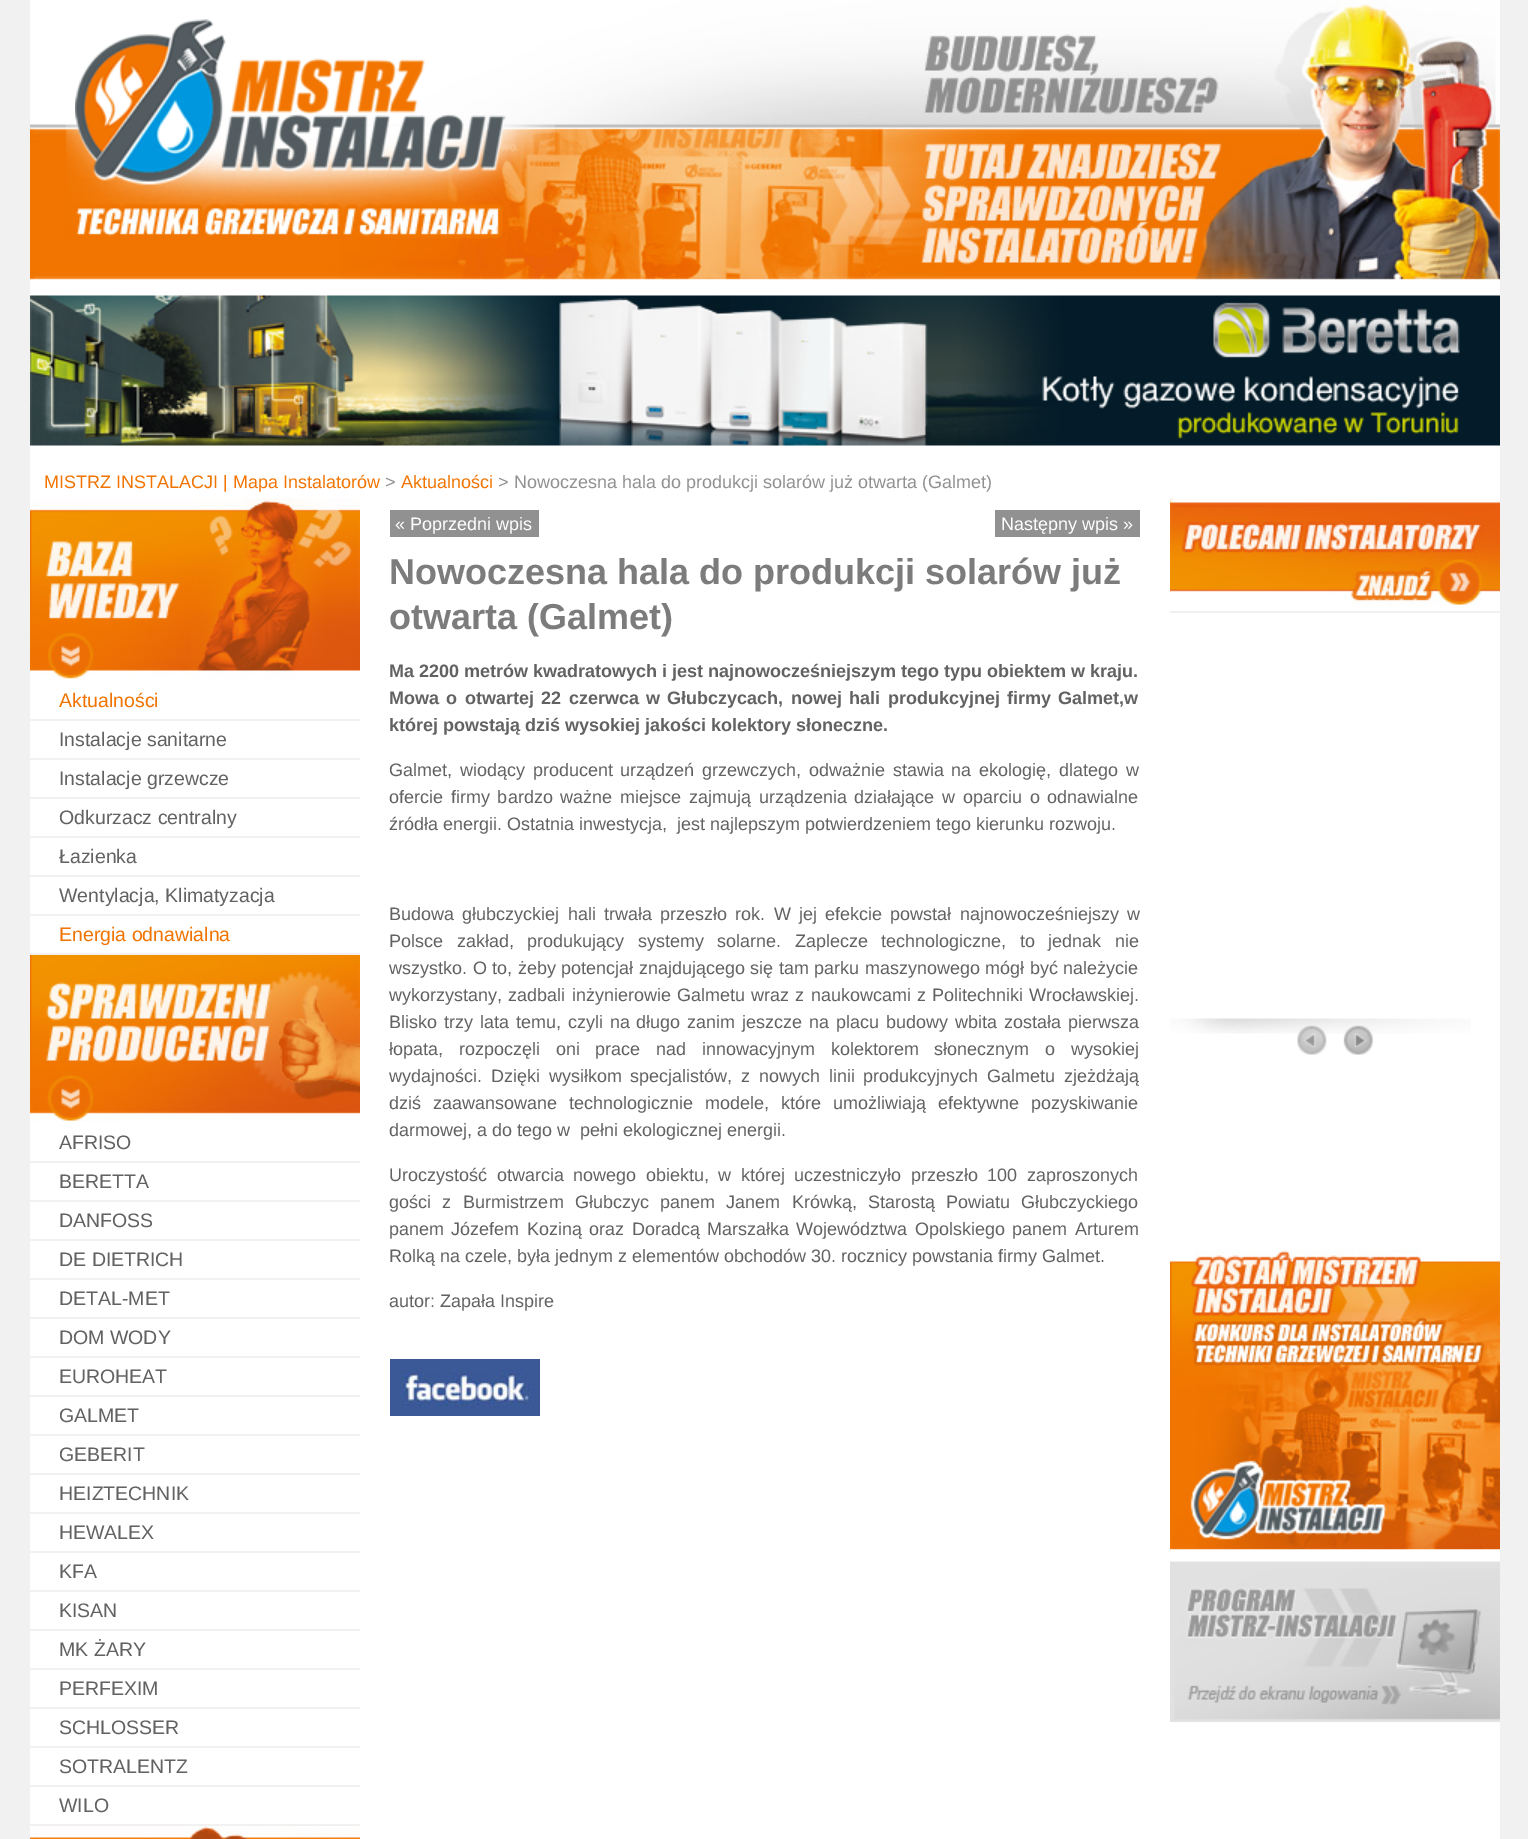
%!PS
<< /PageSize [1528 1839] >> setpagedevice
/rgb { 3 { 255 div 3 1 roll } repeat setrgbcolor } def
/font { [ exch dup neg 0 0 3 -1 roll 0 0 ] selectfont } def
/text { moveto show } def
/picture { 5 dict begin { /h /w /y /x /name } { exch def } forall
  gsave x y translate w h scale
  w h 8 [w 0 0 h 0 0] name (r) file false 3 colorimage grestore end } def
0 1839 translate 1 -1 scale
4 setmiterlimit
241 241 241 rgb
0 0 1528 1839 rectfill
255 255 255 rgb
30 280 1470 1559 rectfill
(img_01.rgb) 30 0 1470 281 picture
(img_02.rgb) 75 19 431 166 picture
(img_03.rgb) 30 295 1470 151 picture
(img_04.rgb) 30 498 330 181 picture
241 241 241 rgb
30 719 330 2 rectfill
30 758 330 2 rectfill
30 797 330 2 rectfill
30 836 330 2 rectfill
30 875 330 2 rectfill
30 914 330 2 rectfill
30 953 330 2 rectfill
(img_05.rgb) 30 955 330 167 picture
30 1161 330 2 rectfill
30 1200 330 2 rectfill
30 1239 330 2 rectfill
30 1278 330 2 rectfill
30 1317 330 2 rectfill
30 1356 330 2 rectfill
30 1395 330 2 rectfill
30 1434 330 2 rectfill
30 1473 330 2 rectfill
30 1512 330 2 rectfill
30 1551 330 2 rectfill
30 1590 330 2 rectfill
30 1629 330 2 rectfill
30 1668 330 2 rectfill
30 1707 330 2 rectfill
30 1746 330 2 rectfill
30 1785 330 2 rectfill
30 1824 330 2 rectfill
(img_06.rgb) 30 1826 330 13 picture
145 145 145 rgb
390 510 149 27 rectfill
995 510 145 27 rectfill
(img_07.rgb) 390 1359 150 57 picture
(img_08.rgb) 1170 498 330 108 picture
241 241 241 rgb
1170 611 330 2 rectfill
(img_09.rgb) 1170 1018 301 16 picture
(img_10.rgb) 1297 1025 30 30 picture
(img_11.rgb) 1343 1025 30 30 picture
(img_12.rgb) 1170 1249 330 301 picture
(img_13.rgb) 1170 1549 330 173 picture
/LiberationSans-Regular 18 font
241 116 0 rgb
(MISTRZ INSTALACJI | Mapa Instalatorów) 44 488 text
145 145 145 rgb
(>) 385 488 text
241 116 0 rgb
(Aktualności) 401 488 text
145 145 145 rgb
(> Nowoczesna hala do produkcji solarów już otwarta \(Galmet\)) 498 488 text
/LiberationSans-Regular 19.5 font
241 116 0 rgb
(Aktualności) 59 707 text
98 98 98 rgb
(Instalacje sanitarne) 59 746 text
(Instalacje grzewcze) 59 785 text
(Odkurzacz centralny) 59 824 text
(Łazienka) 59 863 text
(Wentylacja, Klimatyzacja) 59 902 text
241 116 0 rgb
(Energia odnawialna) 59 941 text
98 98 98 rgb
(AFRISO) 59 1149 text
(BERETTA) 59 1188 text
(DANFOSS) 59 1227 text
(DE DIETRICH) 59 1266 text
(DETAL-MET) 59 1305 text
(DOM WODY) 59 1344 text
(EUROHEAT) 59 1383 text
(GALMET) 59 1422 text
(GEBERIT) 59 1461 text
(HEIZTECHNIK) 59 1500 text
(HEWALEX) 59 1539 text
(KFA) 59 1578 text
(KISAN) 59 1617 text
(MK ŻARY) 59 1656 text
(PERFEXIM) 59 1695 text
(SCHLOSSER) 59 1734 text
(SOTRALENTZ) 59 1773 text
(WILO) 59 1812 text
/LiberationSans-Regular 18 font
255 255 255 rgb
(« Poprzedni wpis) 395 530 text
(Następny wpis ») 1001 530 text
/LiberationSans-Bold 36 font
124 124 124 rgb
(Nowoczesna hala do produkcji solarów już) 389 584 text
(otwarta \(Galmet\)) 389 629 text
/LiberationSans-Bold 18 font
98 98 98 rgb
(Ma 2200 metrów kwadratowych i jest najnowocześniejszym tego typu obiektem w kraju.) 389 677 text
389 704 moveto 2.4 0 32 (Mowa o otwartej 22 czerwca w Głubczycach, nowej hali produkcyjnej firmy Galmet,w) widthshow
(której powstają dziś wysokiej jakości kolektory słoneczne.) 389 731 text
/LiberationSans-Regular 18 font
389 776 moveto 2.75 0 32 (Galmet, wiodący producent urządzeń grzewczych, odważnie stawia na ekologię, dlatego w) widthshow
389 803 moveto 2.75 0 32 (ofercie firmy bardzo ważne miejsce zajmują urządzenia działające w oparciu o odnawialne) widthshow
(źródła energii. Ostatnia inwestycja,  jest najlepszym potwierdzeniem tego kierunku rozwoju.) 389 830 text
389 920 moveto 3.25 0 32 (Budowa głubczyckiej hali trwała przeszło rok. W jej efekcie powstał najnowocześniejszy w) widthshow
389 947 moveto 8.5 0 32 (Polsce zakład, produkujący systemy solarne. Zaplecze technologiczne, to jednak nie) widthshow
389 974 moveto 0.5 0 32 (wszystko. O to, żeby potencjał znajdującego się tam parku maszynowego mógł być należycie) widthshow
389 1001 moveto 1.25 0 32 (wykorzystany, zadbali inżynierowie Galmetu wraz z naukowcami z Politechniki Wrocławskiej.) widthshow
389 1028 moveto 1.9 0 32 (Blisko trzy lata temu, czyli na długo zanim jeszcze na placu budowy wbita została pierwsza) widthshow
389 1055 moveto 10.75 0 32 (łopata, rozpoczęli oni prace nad innowacyjnym kolektorem słonecznym o wysokiej) widthshow
389 1082 moveto 3.75 0 32 (wydajności. Dzięki wysiłkom specjalistów, z nowych linii produkcyjnych Galmetu zjeżdżają) widthshow
389 1109 moveto 7 0 32 (dziś zaawansowane technologicznie modele, które umożliwiają efektywne pozyskiwanie) widthshow
(darmowej, a do tego w  pełni ekologicznej energii.) 389 1136 text
389 1181 moveto 4.5 0 32 (Uroczystość otwarcia nowego obiektu, w której uczestniczyło przeszło 100 zaproszonych) widthshow
389 1208 moveto 6.25 0 32 (gości z Burmistrzem Głubczyc panem Janem Krówką, Starostą Powiatu Głubczyckiego) widthshow
389 1235 moveto 2.4 0 32 (panem Józefem Koziną oraz Doradcą Marszałka Województwa Opolskiego panem Arturem) widthshow
(Rolką na czele, była jednym z elementów obchodów 30. rocznicy powstania firmy Galmet.) 389 1262 text
(autor: Zapała Inspire) 389 1307 text
showpage
